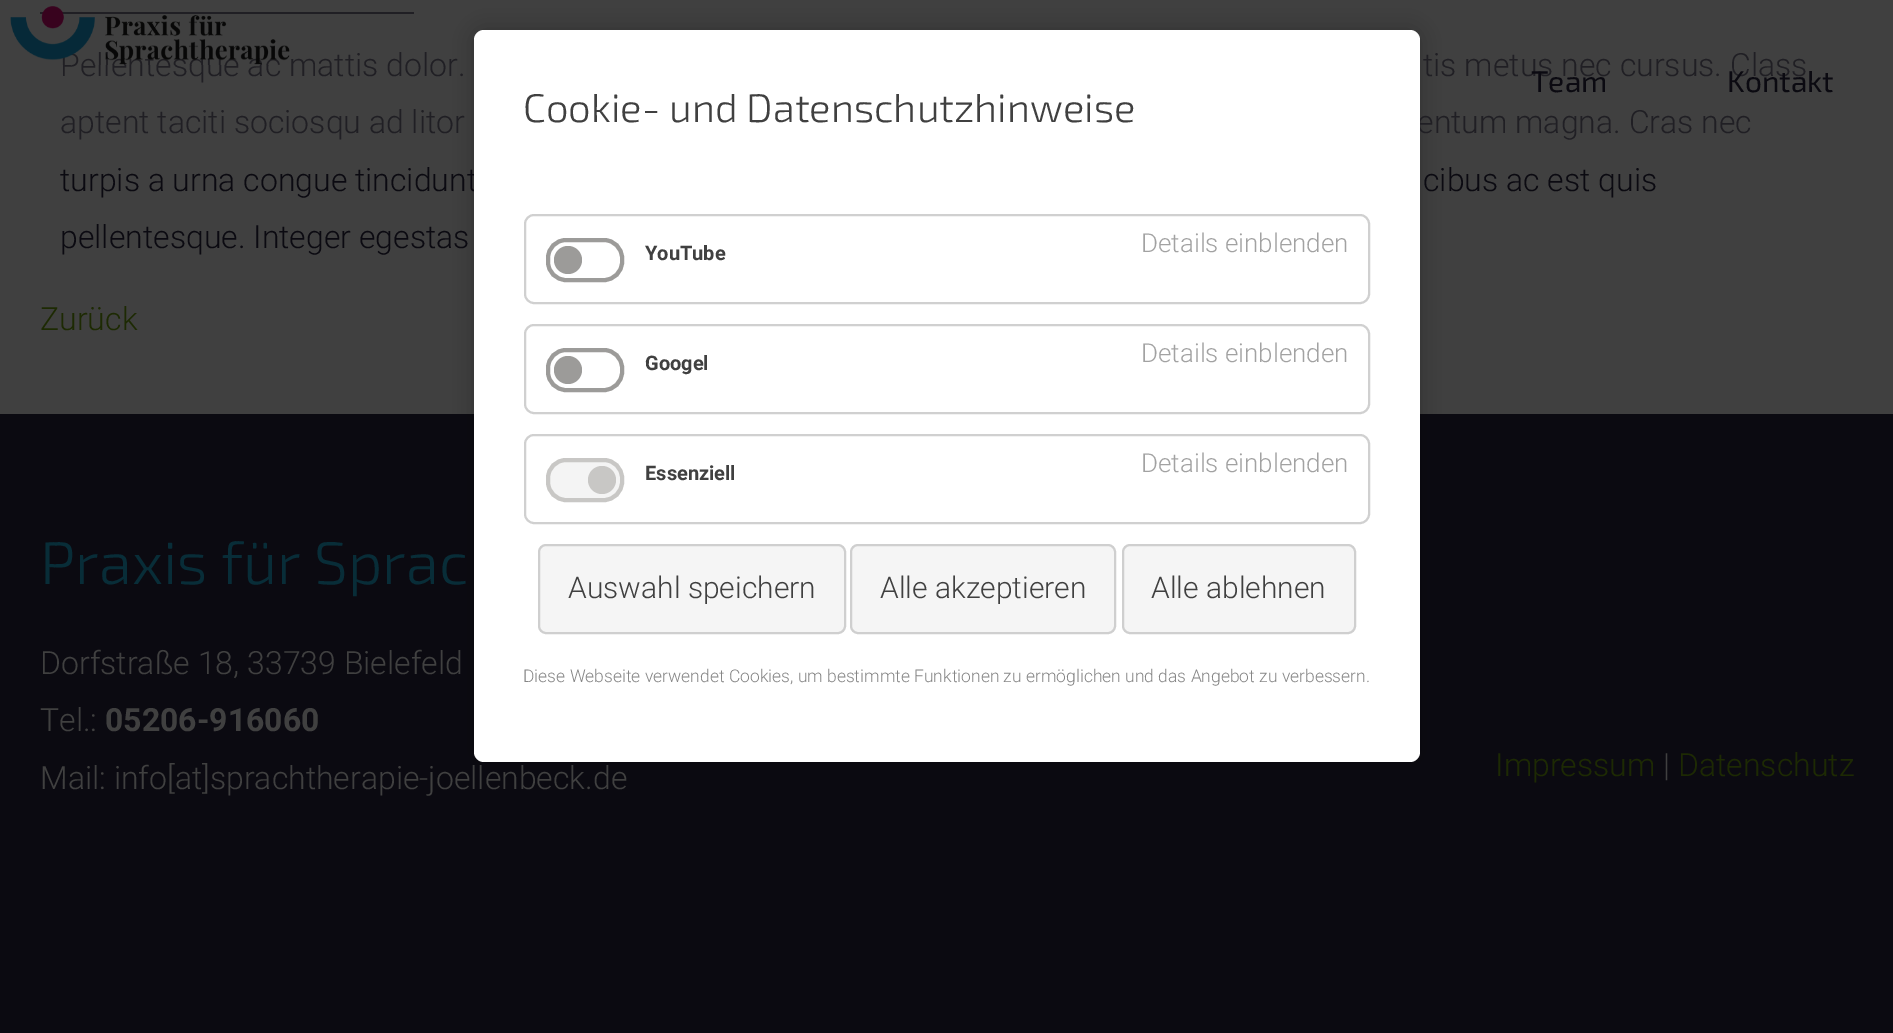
%!PS
<< /PageSize [1893 1033] /PageUsesTransparency true >> setpagedevice
/rgb { 3 { 255 div 3 1 roll } repeat setrgbcolor } def
/font { [ exch dup neg 0 0 3 -1 roll 0 0 ] selectfont } def
/text { moveto show } def
/alpha { dup .setfillconstantalpha .setstrokeconstantalpha } def
/circle { newpath 0 360 arc closepath } def
/roundrect { 5 dict begin { /r /h /w /y /x } { exch def } forall
  x r add y moveto x w add y 2 copy h add r arct x w add y h add x 1 index r arct
  x y h add x y r arct x y 2 copy exch w add exch r arct closepath end } def
/shadow { 12 dict begin { /a /b /q /h /w /y /x } { exch def } forall gsave /was 0 def
  9 -2 -9 { dup b mul 4 div /e exch def 1 sub .425 mul 2.718 exch exp 1 add a .99 .min exch div /now exch def
    1 1 now sub 1 was sub div sub alpha /was now def
    w h .min e 2 mul add 0 gt { x e sub y e sub w e 2 mul add h e 2 mul add
      q e add b .6 mul add w h .min 2 div e add .min 0 .max roundrect fill } if } for grestore end } def
/picture { 5 dict begin { /h /w /y /x /name } { exch def } forall
  gsave x y translate w h scale
  w h 8 [w 0 0 h 0 0] name (r) file false 3 colorimage grestore end } def
0 .pushpdf14devicefilter
0 1033 translate 1 -1 scale
4 setmiterlimit
64 64 64 rgb
0 0 1893 1033 rectfill
32 31 36 rgb
40 12 374 2 rectfill
11 10 17 rgb
0 414 1893 619 rectfill
0 0 0 rgb
474 30 946 732 10 10 0.25 shadow
/Roboto-Light 32 font
32 31 36 rgb
(Pellentesque ac mattis dolor.) 60 76 text
(tis metus nec cursus. Class) 1423 76 text
(aptent taciti sociosqu ad litor) 60 133 text
(entum magna. Cras nec) 1417 133 text
11 10 17 rgb
(turpis a urna congue tincidunt) 60 191 text
(cibus ac est quis) 1423 191 text
(pellentesque. Integer egestas) 60 248 text
29 42 3 rgb
(Zurück) 40 330 text
(img_01.rgb) 10 6 280 59 picture
/Exo2-Regular 30 font
11 10 17 rgb
(Team) 1531 92 text
(Kontakt) 1727 92 text
/Exo2-Light 60 font
8 45 56 rgb
(Praxis für Sprac) 40 584 text
/Roboto-Light 32 font
64 64 64 rgb
(Dorfstraße 18, 33739 Bielefeld) 40 674 text
(Tel.:) 40 731 text
/Roboto-Bold 32 font
(05206-916060) 105 731 text
/Roboto-Light 32 font
(Mail: info[at]sprachtherapie-joellenbeck.de) 40 789 text
29 42 3 rgb
(Impressum) 1495 776 text
64 64 64 rgb
(|) 1663 776 text
29 42 3 rgb
(Datenschutz) 1678 776 text
255 255 255 rgb
474 30 946 732 10 roundrect fill
/Exo2-Light 40 font
64 64 64 rgb
(Cookie- und Datenschutzhinweise) 523 122 text
208 208 208 rgb
2 setlinewidth
525 215 844 88 9 roundrect stroke
156 155 153 rgb
4 setlinewidth
548 240 74 40 18 roundrect stroke
/Roboto-Bold 20 font
64 64 64 rgb
(YouTube) 645 260 text
156 155 153 rgb
568 260 14 circle fill
/Roboto-Light 26 font
162 162 162 rgb
(Details einblenden) 1141 252 text
208 208 208 rgb
2 setlinewidth
525 325 844 88 9 roundrect stroke
162 162 162 rgb
(Details einblenden) 1141 362 text
156 155 153 rgb
4 setlinewidth
548 350 74 40 18 roundrect stroke
/Roboto-Bold 20 font
64 64 64 rgb
(Googel) 645 370 text
156 155 153 rgb
568 370 14 circle fill
208 208 208 rgb
2 setlinewidth
525 435 844 88 9 roundrect stroke
244 244 244 rgb
548 460 74 40 18 roundrect gsave fill grestore
200 199 197 rgb
4 setlinewidth
stroke
64 64 64 rgb
(Essenziell) 645 480 text
200 199 197 rgb
602 480 14 circle fill
/Roboto-Light 26 font
162 162 162 rgb
(Details einblenden) 1141 472 text
245 245 245 rgb
539 545 306 88 7 roundrect gsave fill grestore
207 207 207 rgb
2 setlinewidth
stroke
/Roboto-Light 30 font
64 64 64 rgb
(Auswahl speichern) 568 598 text
245 245 245 rgb
851 545 264 88 7 roundrect gsave fill grestore
207 207 207 rgb
stroke
64 64 64 rgb
(Alle akzeptieren) 880 598 text
245 245 245 rgb
1123 545 232 88 7 roundrect gsave fill grestore
207 207 207 rgb
stroke
64 64 64 rgb
(Alle ablehnen) 1151 598 text
/Roboto-Light 17.5 font
134 134 134 rgb
(Diese Webseite verwendet Cookies, um bestimmte Funktionen zu ermöglichen und das Angebot zu verbessern.) 523 682 text
.poppdf14devicefilter showpage
